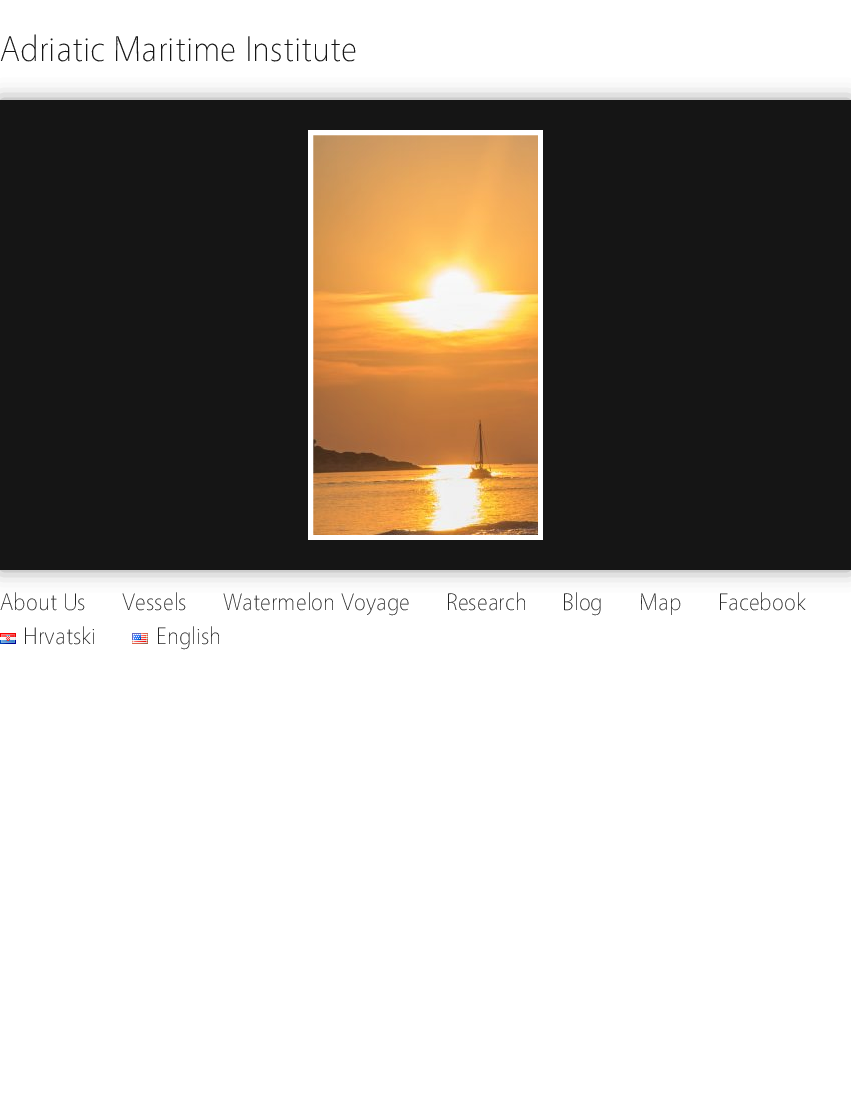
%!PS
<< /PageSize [851 1112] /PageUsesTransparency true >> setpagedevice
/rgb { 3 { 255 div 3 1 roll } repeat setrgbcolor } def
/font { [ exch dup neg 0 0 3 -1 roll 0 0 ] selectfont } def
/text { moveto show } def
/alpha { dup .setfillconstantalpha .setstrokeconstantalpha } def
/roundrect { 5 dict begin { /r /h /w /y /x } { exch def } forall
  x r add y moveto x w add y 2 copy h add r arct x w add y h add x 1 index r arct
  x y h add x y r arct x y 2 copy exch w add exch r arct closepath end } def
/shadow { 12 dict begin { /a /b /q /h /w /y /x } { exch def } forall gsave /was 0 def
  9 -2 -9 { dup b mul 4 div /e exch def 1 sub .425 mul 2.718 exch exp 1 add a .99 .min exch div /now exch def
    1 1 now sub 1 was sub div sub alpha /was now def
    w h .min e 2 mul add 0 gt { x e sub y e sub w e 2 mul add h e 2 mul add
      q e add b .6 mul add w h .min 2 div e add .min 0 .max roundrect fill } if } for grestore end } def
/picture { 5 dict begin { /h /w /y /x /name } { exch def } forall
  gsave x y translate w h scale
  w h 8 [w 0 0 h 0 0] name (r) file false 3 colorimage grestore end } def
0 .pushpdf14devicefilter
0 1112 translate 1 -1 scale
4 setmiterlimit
255 255 255 rgb
0 0 851 1112 rectfill
153 153 153 rgb
0 100 851 470 0 10 1 shadow
21 21 21 rgb
0 100 851 470 rectfill
255 255 255 rgb
538 130 5 410 rectfill
(img_01.rgb) 313 135 225 400 picture
gsave
308 130 230 410 rectclip
5 setlinewidth
310.5 132.5 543 405 rectstroke
grestore
(img_02.rgb) 0 633 16 11 picture
(img_03.rgb) 132 633 16 11 picture
/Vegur-Light 36 font
21 21 21 rgb
(Adriatic Maritime Institute) 0 61 text
/Vegur-Light 24 font
37 37 37 rgb
(About Us) 0 610 text
(Vessels) 122 610 text
(Watermelon Voyage) 223 610 text
(Research) 446 610 text
(Blog) 562 610 text
(Map) 639 610 text
(Facebook) 718 610 text
(Hrvatski) 23 644 text
(English) 156 644 text
.poppdf14devicefilter showpage
